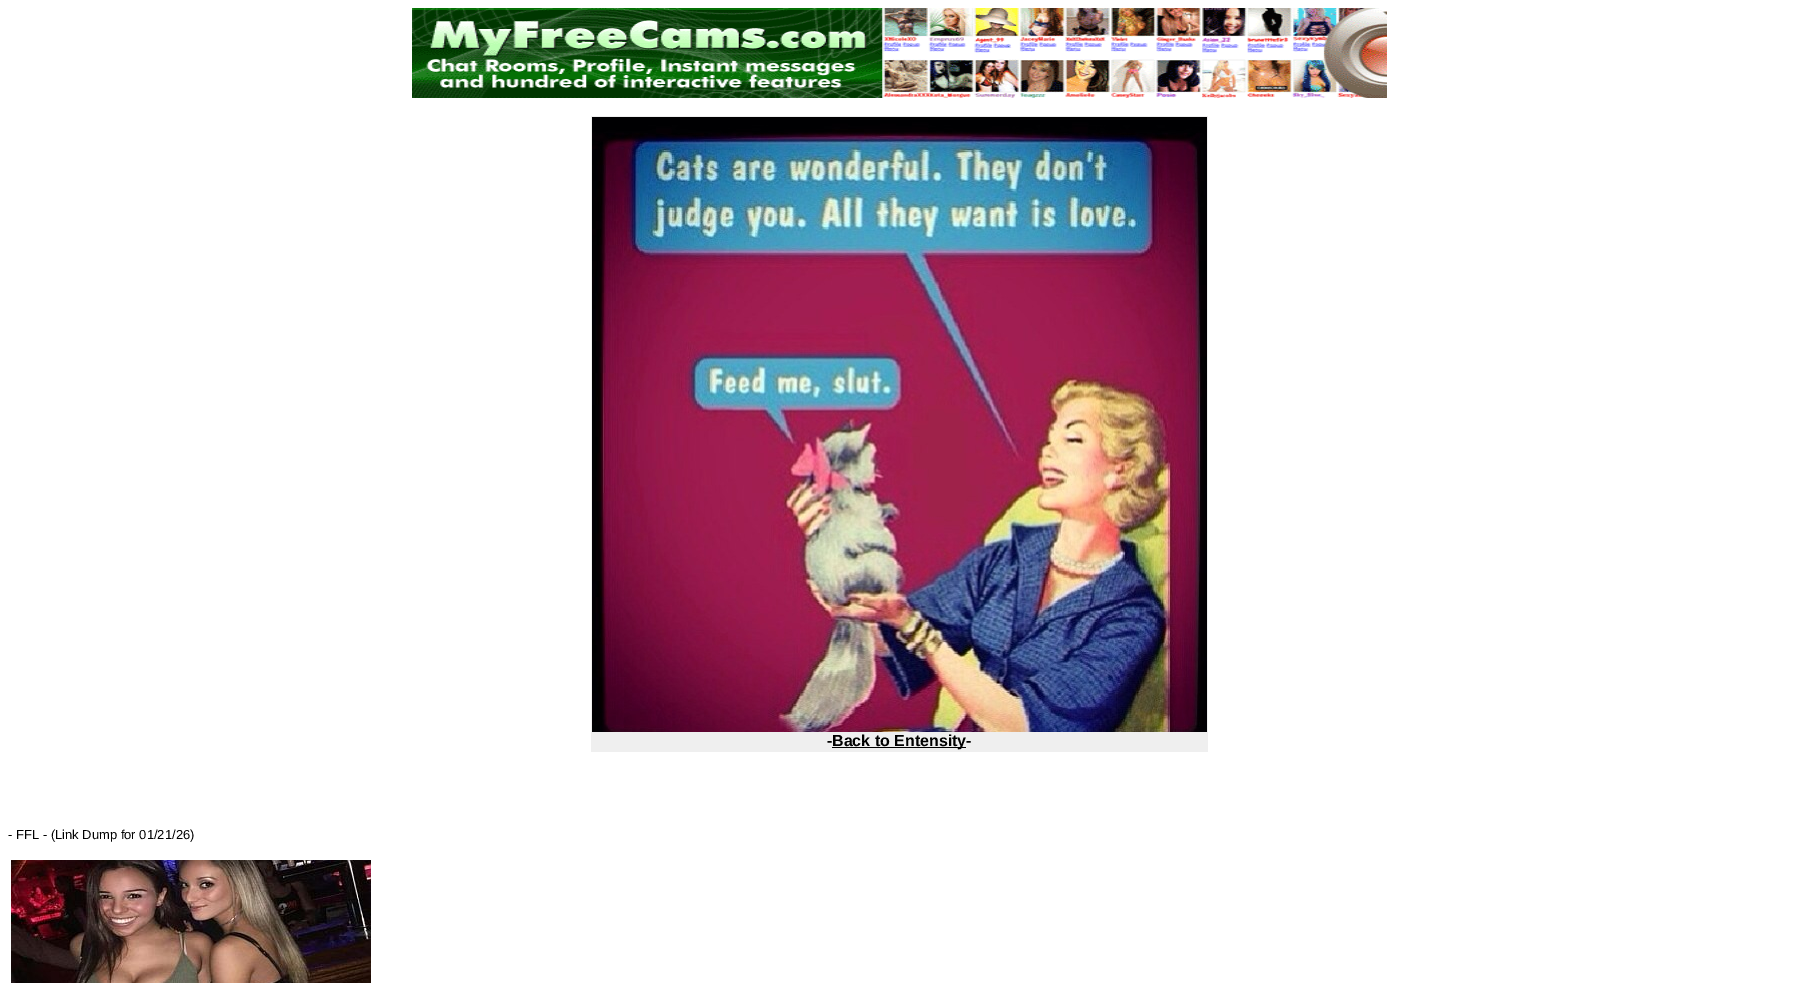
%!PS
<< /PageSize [1798 983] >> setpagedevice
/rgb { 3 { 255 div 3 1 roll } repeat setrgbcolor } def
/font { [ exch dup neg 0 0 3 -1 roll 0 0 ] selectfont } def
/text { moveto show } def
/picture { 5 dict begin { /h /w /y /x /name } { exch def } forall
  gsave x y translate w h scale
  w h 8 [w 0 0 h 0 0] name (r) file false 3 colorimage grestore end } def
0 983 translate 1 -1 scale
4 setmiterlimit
255 255 255 rgb
0 0 1798 983 rectfill
(img_01.rgb) 412 8 975 90 picture
239 239 239 rgb
591 116 617 636 rectfill
(img_02.rgb) 592 117 615 615 picture
0 0 0 rgb
832 747 134 1 rectfill
(img_03.rgb) 11 860 360 123 picture
/LiberationSans-Bold 16 font
(-) 827 746 text
(Back to Entensity-) 832 746 text
/LiberationSans-Regular 13 font
(- FFL - \(Link Dump for 01/21/26\)) 8 839 text
showpage
